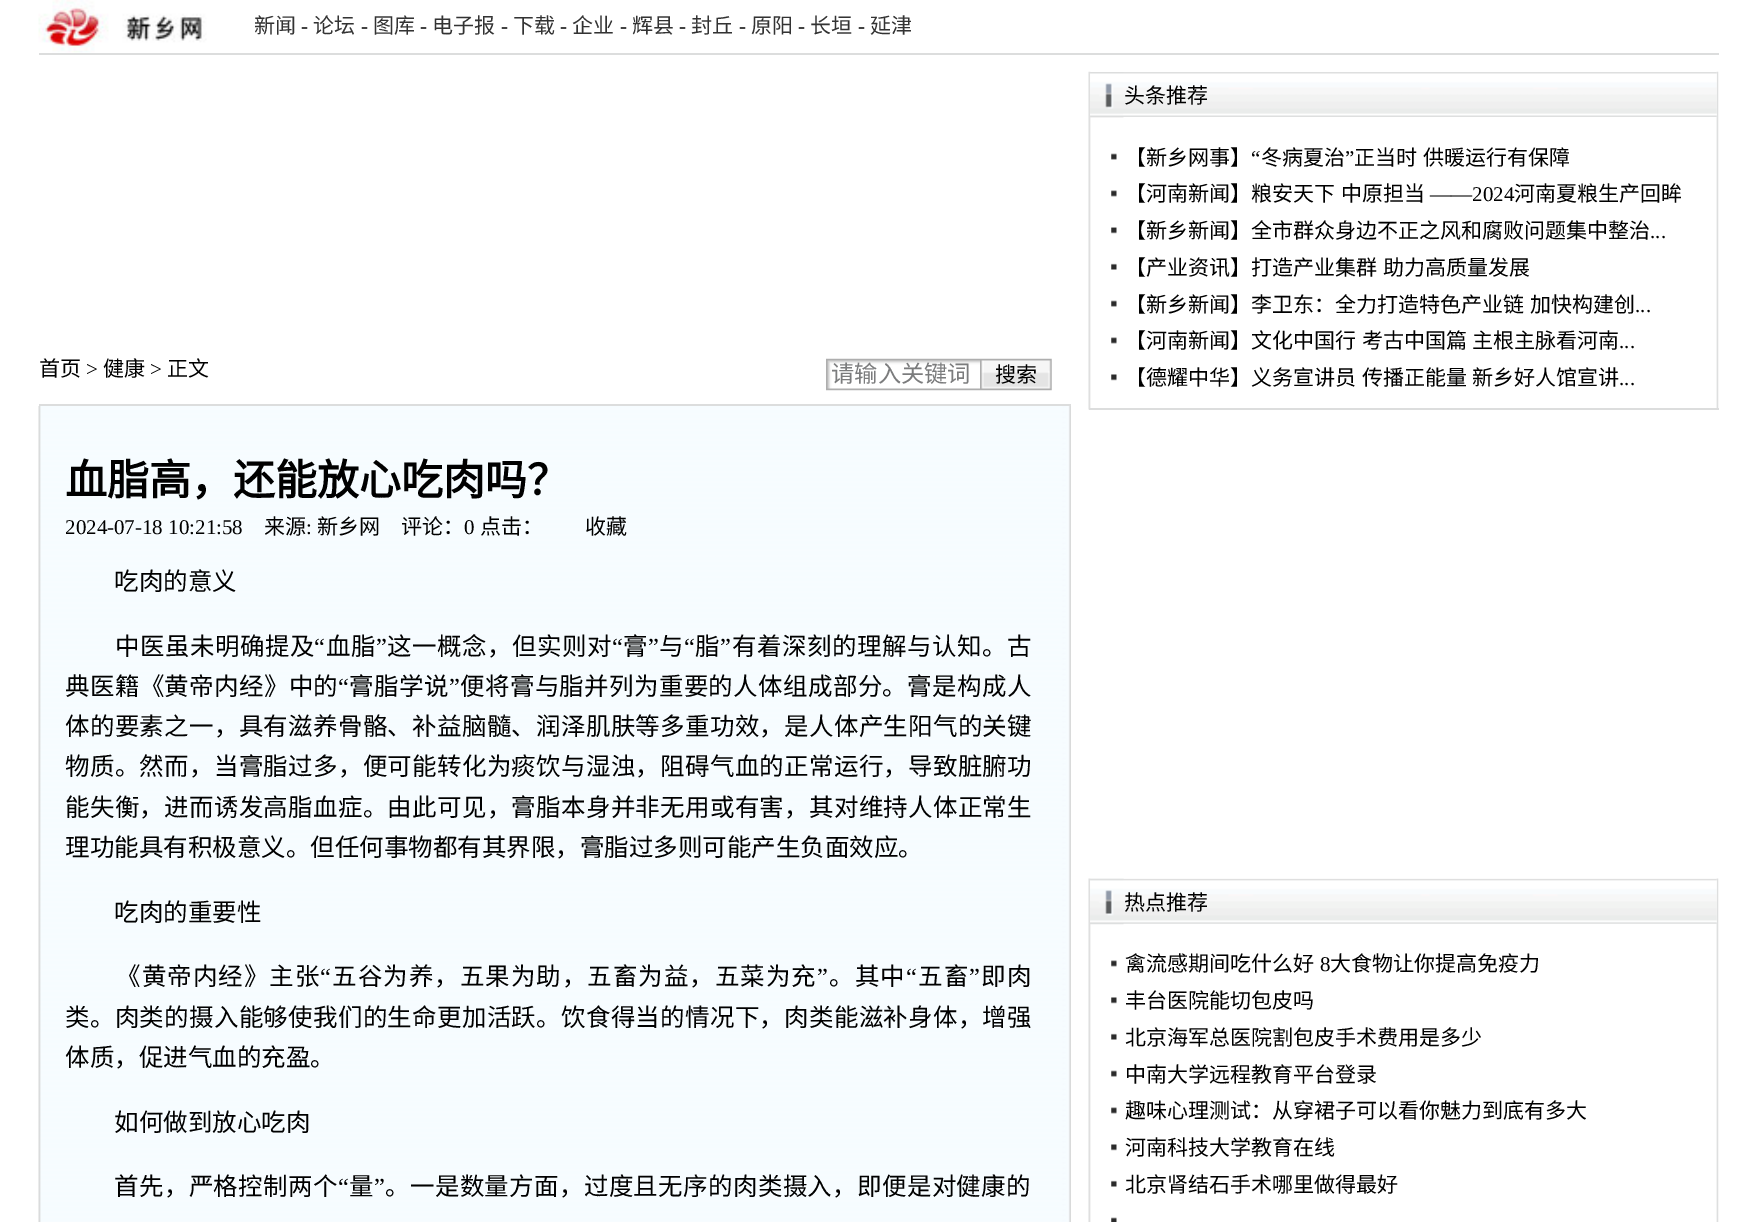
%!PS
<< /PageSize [1757 1222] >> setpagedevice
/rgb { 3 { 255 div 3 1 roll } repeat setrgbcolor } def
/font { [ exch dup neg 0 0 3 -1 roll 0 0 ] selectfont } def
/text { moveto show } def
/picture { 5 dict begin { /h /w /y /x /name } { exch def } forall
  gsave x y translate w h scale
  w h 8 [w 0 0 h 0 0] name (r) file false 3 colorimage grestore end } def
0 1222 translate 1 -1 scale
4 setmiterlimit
255 255 255 rgb
0 0 1757 1222 rectfill
220 221 221 rgb
39 53 1680 2 rectfill
(img_01.rgb) 38 0 169 53 picture
(img_02.rgb) 826 358 154 33 picture
(img_03.rgb) 980 358 72 33 picture
39 404 1032 2 rectfill
(img_04.rgb) 38 406 1033 816 picture
(img_05.rgb) 1088 71 631 339 picture
1089 408 630 2 rectfill
(img_06.rgb) 1090 72 627 45 picture
(img_07.rgb) 1090 72 34 46 picture
(img_08.rgb) 1111 153 6 7 picture
(img_09.rgb) 1111 190 6 7 picture
(img_10.rgb) 1111 227 6 7 picture
(img_11.rgb) 1111 263 6 7 picture
(img_08.rgb) 1111 300 6 7 picture
(img_09.rgb) 1111 337 6 7 picture
(img_12.rgb) 1111 374 6 7 picture
(img_13.rgb) 1088 878 631 344 picture
(img_14.rgb) 1090 878 627 46 picture
(img_15.rgb) 1090 878 34 47 picture
(img_09.rgb) 1111 960 6 7 picture
(img_12.rgb) 1111 997 6 7 picture
(img_11.rgb) 1111 1033 6 7 picture
(img_08.rgb) 1111 1070 6 7 picture
(img_09.rgb) 1111 1107 6 7 picture
(img_12.rgb) 1111 1144 6 7 picture
(img_11.rgb) 1111 1180 6 7 picture
(img_16.rgb) 1111 1217 6 5 picture
/NotoSansCJKSC-Regular 21 font
51 51 51 rgb
(新闻) 254 33 text
/LiberationSerif-Regular 21 font
0 0 0 rgb
(-) 301 33 text
/NotoSansCJKSC-Regular 21 font
51 51 51 rgb
(论坛) 313 33 text
/LiberationSerif-Regular 21 font
0 0 0 rgb
(-) 361 33 text
/NotoSansCJKSC-Regular 21 font
51 51 51 rgb
(图库) 373 33 text
/LiberationSerif-Regular 21 font
0 0 0 rgb
(-) 420 33 text
/NotoSansCJKSC-Regular 21 font
51 51 51 rgb
(电子报) 432 33 text
/LiberationSerif-Regular 21 font
0 0 0 rgb
(-) 501 33 text
/NotoSansCJKSC-Regular 21 font
51 51 51 rgb
(下载) 513 33 text
/LiberationSerif-Regular 21 font
0 0 0 rgb
(-) 560 33 text
/NotoSansCJKSC-Regular 21 font
51 51 51 rgb
(企业) 572 33 text
/LiberationSerif-Regular 21 font
0 0 0 rgb
(-) 620 33 text
/NotoSansCJKSC-Regular 21 font
51 51 51 rgb
(辉县) 632 33 text
/LiberationSerif-Regular 21 font
0 0 0 rgb
(-) 679 33 text
/NotoSansCJKSC-Regular 21 font
51 51 51 rgb
(封丘) 691 33 text
/LiberationSerif-Regular 21 font
0 0 0 rgb
(-) 739 33 text
/NotoSansCJKSC-Regular 21 font
51 51 51 rgb
(原阳) 751 33 text
/LiberationSerif-Regular 21 font
0 0 0 rgb
(-) 798 33 text
/NotoSansCJKSC-Regular 21 font
51 51 51 rgb
(长垣) 810 33 text
/LiberationSerif-Regular 21 font
0 0 0 rgb
(-) 858 33 text
/NotoSansCJKSC-Regular 21 font
51 51 51 rgb
(延津) 870 33 text
0 0 0 rgb
(首页) 39 376 text
/LiberationSerif-Regular 21 font
(>) 86 376 text
/NotoSansCJKSC-Regular 21 font
(健康) 103 376 text
/LiberationSerif-Regular 21 font
(>) 150 376 text
/NotoSansCJKSC-Regular 21 font
(正文) 167 376 text
/NotoSansCJKSC-Regular 23.25 font
123 124 125 rgb
(请输入关键词) 831 382 text
/NotoSansCJKSC-Regular 21 font
0 0 0 rgb
(搜索) 995 382 text
/NotoSansCJKSC-Bold 42 font
(血脂高，还能放心吃肉吗？) 65 495 text
/LiberationSerif-Regular 21 font
(2024-07-18 10:21:58) 65 534 text
/NotoSansCJKSC-Regular 21 font
(来源) 264 534 text
/LiberationSerif-Regular 21 font
(:) 306 534 text
/NotoSansCJKSC-Regular 21 font
(新乡网) 317 534 text
(评论：) 401 534 text
/LiberationSerif-Regular 21 font
(0) 464 534 text
/NotoSansCJKSC-Regular 21 font
(点击：) 480 534 text
(收藏) 585 534 text
/NotoSansCJKSC-Regular 24.5 font
(吃肉的意义) 114 590 text
115 655 moveto 0.5 0 (中医虽未明确提及) ashow
/LiberationSerif-Regular 24.5 font
314 655 moveto 0.5 0 (“) ashow
/NotoSansCJKSC-Regular 24.5 font
326 655 moveto 0.5 0 (血脂) ashow
/LiberationSerif-Regular 24.5 font
376 655 moveto 0.5 0 (”) ashow
/NotoSansCJKSC-Regular 24.5 font
387 655 moveto 0.5 0 (这一概念，但实则对) ashow
/LiberationSerif-Regular 24.5 font
612 655 moveto 0.5 0 (“) ashow
/NotoSansCJKSC-Regular 24.5 font
623 655 moveto 0.5 0 (膏) ashow
/LiberationSerif-Regular 24.5 font
648 655 moveto 0.5 0 (”) ashow
/NotoSansCJKSC-Regular 24.5 font
659 655 moveto 0.5 0 (与) ashow
/LiberationSerif-Regular 24.5 font
684 655 moveto 0.5 0 (“) ashow
/NotoSansCJKSC-Regular 24.5 font
695 655 moveto 0.5 0 (脂) ashow
/LiberationSerif-Regular 24.5 font
720 655 moveto 0.5 0 (”) ashow
/NotoSansCJKSC-Regular 24.5 font
732 655 moveto 0.5 0 (有着深刻的理解与认知。古) ashow
65 695 moveto 0.35 0 (典医籍《黄帝内经》中的) ashow
/LiberationSerif-Regular 24.5 font
338 695 moveto 0.35 0 (“) ashow
/NotoSansCJKSC-Regular 24.5 font
349 695 moveto 0.35 0 (膏脂学说) ashow
/LiberationSerif-Regular 24.5 font
449 695 moveto 0.35 0 (”) ashow
/NotoSansCJKSC-Regular 24.5 font
460 695 moveto 0.35 0 (便将膏与脂并列为重要的人体组成部分。膏是构成人) ashow
65 735 moveto 0.3 0 (体的要素之一，具有滋养骨骼、补益脑髓、润泽肌肤等多重功效，是人体产生阳气的关键) ashow
65 775 moveto 0.3 0 (物质。然而，当膏脂过多，便可能转化为痰饮与湿浊，阻碍气血的正常运行，导致脏腑功) ashow
65 816 moveto 0.3 0 (能失衡，进而诱发高脂血症。由此可见，膏脂本身并非无用或有害，其对维持人体正常生) ashow
(理功能具有积极意义。但任何事物都有其界限，膏脂过多则可能产生负面效应。) 65 856 text
(吃肉的重要性) 114 921 text
116 985 moveto 1 0 (《黄帝内经》主张) ashow
/LiberationSerif-Regular 24.5 font
320 985 moveto 1 0 (“) ashow
/NotoSansCJKSC-Regular 24.5 font
332 985 moveto 1 0 (五谷为养，五果为助，五畜为益，五菜为充) ashow
/LiberationSerif-Regular 24.5 font
817 985 moveto 1 0 (”) ashow
/NotoSansCJKSC-Regular 24.5 font
829 985 moveto 1 0 (。其中) ashow
/LiberationSerif-Regular 24.5 font
906 985 moveto 1 0 (“) ashow
/NotoSansCJKSC-Regular 24.5 font
918 985 moveto 1 0 (五畜) ashow
/LiberationSerif-Regular 24.5 font
969 985 moveto 1 0 (”) ashow
/NotoSansCJKSC-Regular 24.5 font
981 985 moveto 1 0 (即肉) ashow
65 1026 moveto 0.3 0 (类。肉类的摄入能够使我们的生命更加活跃。饮食得当的情况下，肉类能滋补身体，增强) ashow
(体质，促进气血的充盈。) 65 1066 text
(如何做到放心吃肉) 114 1131 text
114 1195 moveto 0.35 0 (首先，严格控制两个) ashow
/LiberationSerif-Regular 24.5 font
338 1195 moveto 0.35 0 (“) ashow
/NotoSansCJKSC-Regular 24.5 font
349 1195 moveto 0.35 0 (量) ashow
/LiberationSerif-Regular 24.5 font
374 1195 moveto 0.35 0 (”) ashow
/NotoSansCJKSC-Regular 24.5 font
385 1195 moveto 0.35 0 (。一是数量方面，过度且无序的肉类摄入，即便是对健康的) ashow
/NotoSansCJKSC-Regular 21 font
(头条推荐) 1124 103 text
(【新乡网事】) 1125 165 text
/LiberationSerif-Regular 21 font
(“) 1251 165 text
/NotoSansCJKSC-Regular 21 font
(冬病夏治) 1261 165 text
/LiberationSerif-Regular 21 font
(”) 1345 165 text
/NotoSansCJKSC-Regular 21 font
1354 165 moveto 1 0 32 (正当时 供暖运行有保障) widthshow
(【河南新闻】) 1125 201 text
1251 201 moveto 1 0 32 (粮安天下 中原担当) widthshow
/LiberationSerif-Regular 21 font
(——2024) 1430 201 text
/NotoSansCJKSC-Regular 21 font
(河南夏粮生产回眸) 1514 201 text
(【新乡新闻】全市群众身边不正之风和腐败问题集中整治) 1125 238 text
/LiberationSerif-Regular 21 font
(...) 1650 238 text
/NotoSansCJKSC-Regular 21 font
(【产业资讯】) 1125 275 text
1251 275 moveto 1 0 32 (打造产业集群 助力高质量发展) widthshow
(【新乡新闻】) 1125 312 text
1251 312 moveto 1 0 32 (李卫东：全力打造特色产业链 加快构建创) widthshow
/LiberationSerif-Regular 21 font
(...) 1635 312 text
/NotoSansCJKSC-Regular 21 font
(【河南新闻】) 1125 348 text
1251 348 moveto 1 0 32 (文化中国行 考古中国篇 主根主脉看河南) widthshow
/LiberationSerif-Regular 21 font
(...) 1619 348 text
/NotoSansCJKSC-Regular 21 font
(【德耀中华】) 1125 385 text
1251 385 moveto 1 0 32 (义务宣讲员 传播正能量 新乡好人馆宣讲) widthshow
/LiberationSerif-Regular 21 font
(...) 1619 385 text
/NotoSansCJKSC-Regular 21 font
(热点推荐) 1124 910 text
(禽流感期间吃什么好) 1125 971 text
/LiberationSerif-Regular 21 font
(8) 1320 971 text
/NotoSansCJKSC-Regular 21 font
(大食物让你提高免疫力) 1330 971 text
(丰台医院能切包皮吗) 1125 1008 text
(北京海军总医院割包皮手术费用是多少) 1125 1045 text
(中南大学远程教育平台登录) 1125 1082 text
(趣味心理测试：从穿裙子可以看你魅力到底有多大) 1125 1118 text
(河南科技大学教育在线) 1125 1155 text
(北京肾结石手术哪里做得最好) 1125 1192 text
showpage
